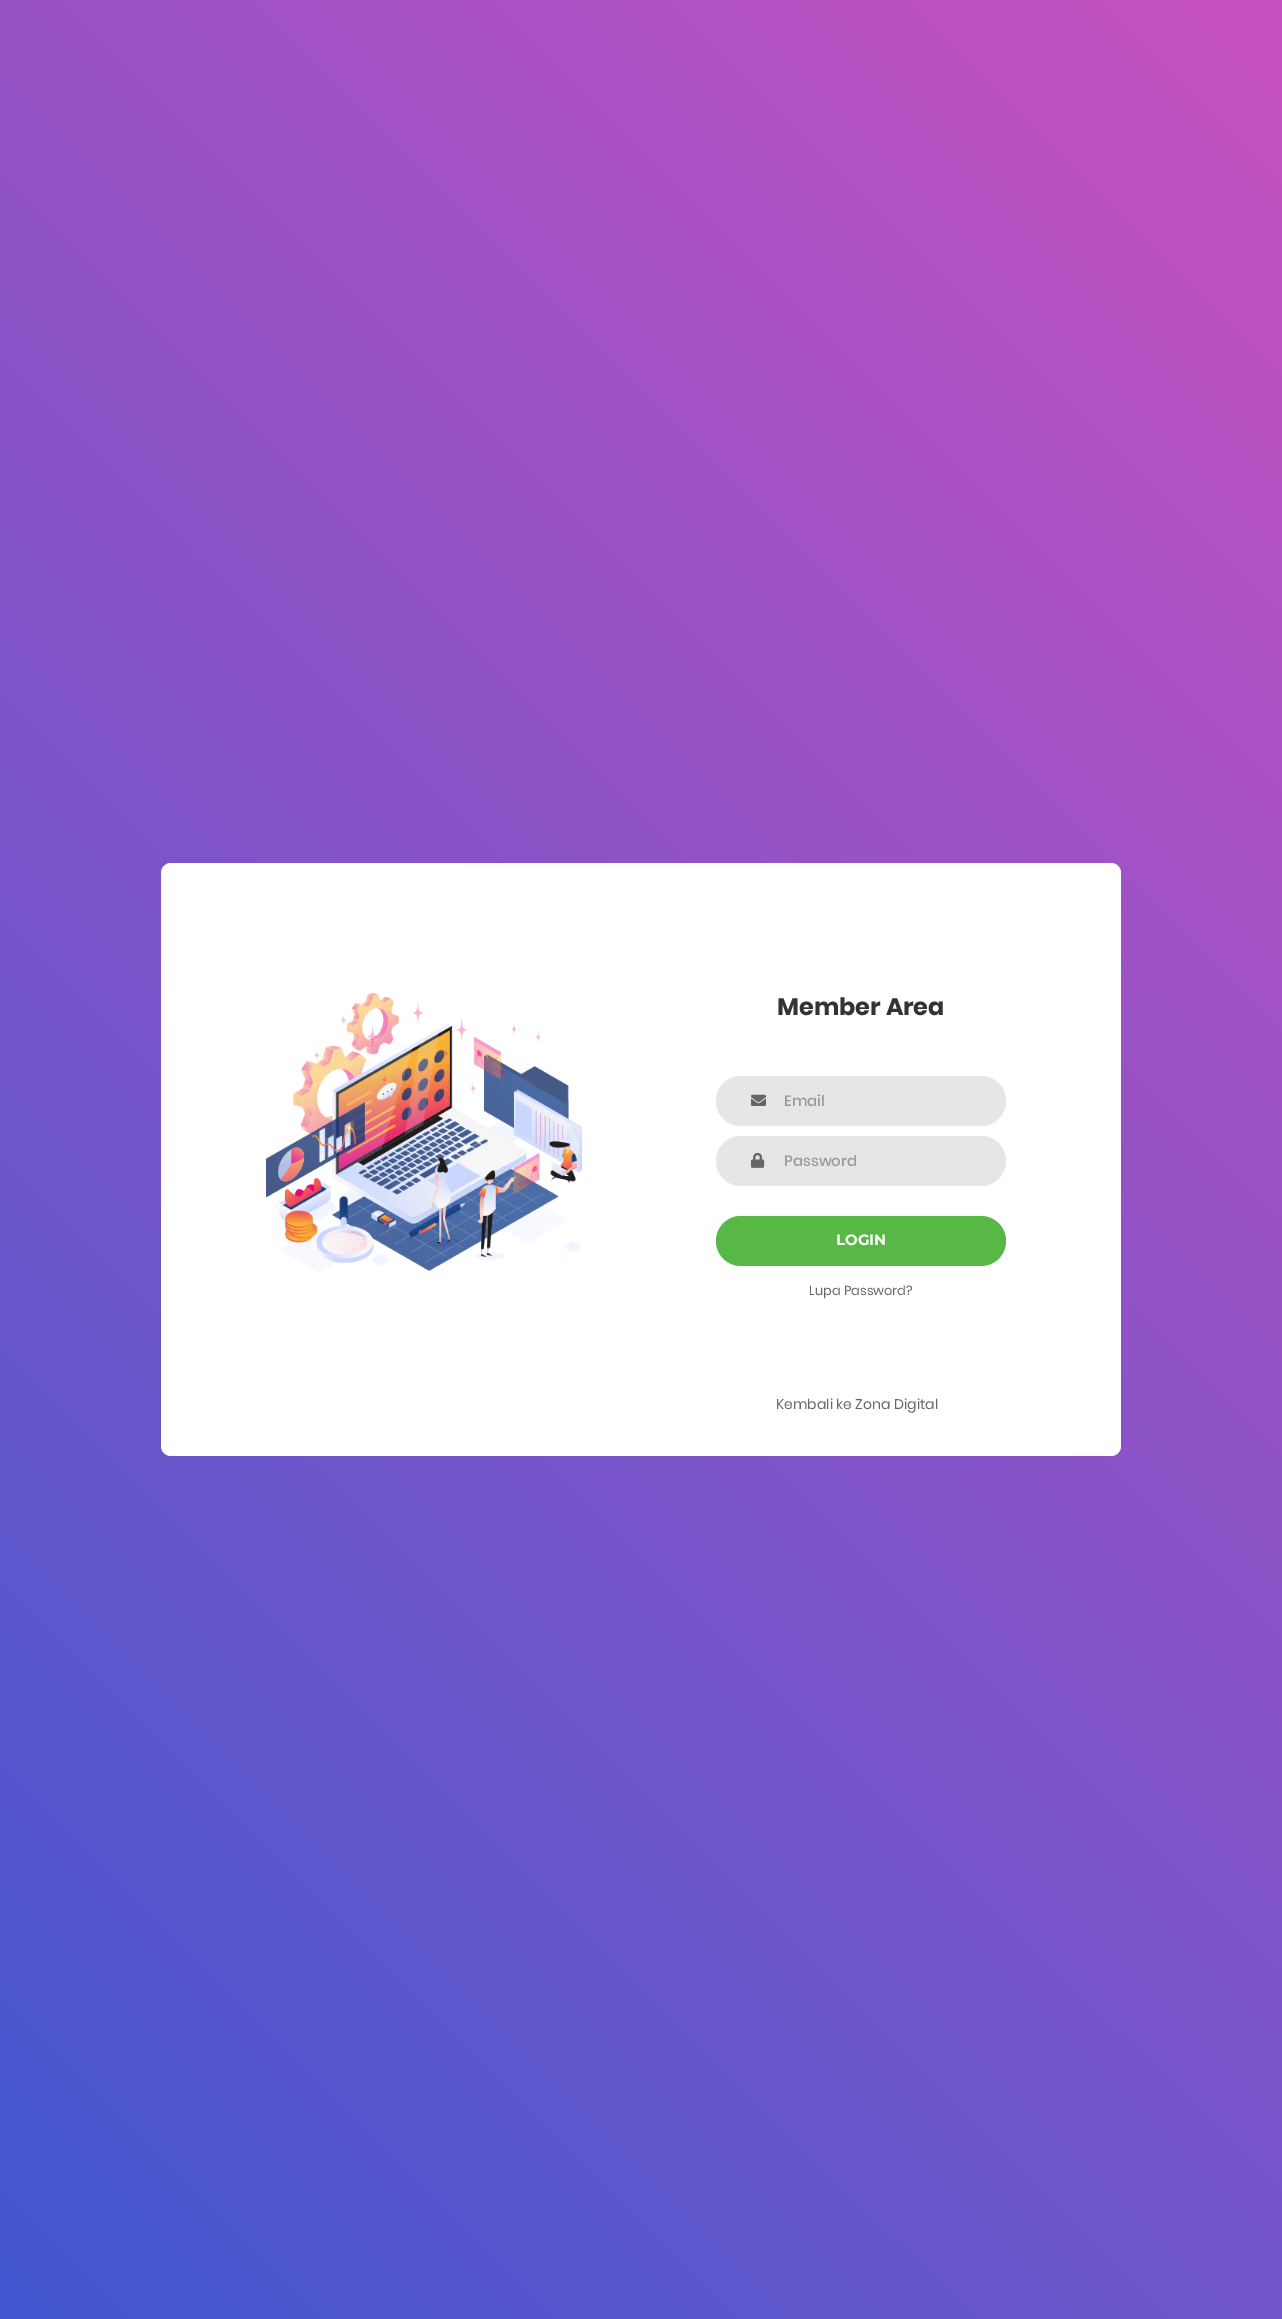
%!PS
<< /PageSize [1282 2319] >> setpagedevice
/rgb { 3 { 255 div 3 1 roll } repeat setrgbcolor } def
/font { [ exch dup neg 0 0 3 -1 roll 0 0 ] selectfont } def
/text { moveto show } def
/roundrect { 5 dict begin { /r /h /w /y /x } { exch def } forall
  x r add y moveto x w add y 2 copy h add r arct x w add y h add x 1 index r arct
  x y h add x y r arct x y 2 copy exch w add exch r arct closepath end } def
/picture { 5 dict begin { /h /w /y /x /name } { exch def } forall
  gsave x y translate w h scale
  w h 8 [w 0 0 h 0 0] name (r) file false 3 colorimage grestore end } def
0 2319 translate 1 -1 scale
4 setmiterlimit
255 255 255 rgb
0 0 1282 2319 rectfill
gsave 0 0 moveto 1282 0 rlineto 0 2319 rlineto -1282 0 rlineto closepath clip newpath
<< /ShadingType 2 /ColorSpace /DeviceRGB /Coords [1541 259 -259 2060] /Extend [true true] /Function << /FunctionType 2 /Domain [0 1] /C0 [0.784 0.314 0.753] /C1 [0.255 0.345 0.816] /N 1 >> >> shfill grestore
161 863 960 593 10 roundrect fill
(img_01.rgb) 266 993 316 279 picture
230 230 230 rgb
716 1076 290 50 25 roundrect fill
(img_02.rgb) 751 1094 15 12 picture
716 1136 290 50 25 roundrect fill
(img_03.rgb) 751 1152 14 16 picture
87 184 70 rgb
716 1216 290 50 25 roundrect fill
/Poppins-Bold 24 font
51 51 51 rgb
(Member Area) 777 1015 text
/Poppins-Medium 15 font
153 153 153 rgb
(Email) 784 1106 text
(Password) 784 1166 text
/Montserrat-Bold 15 font
255 255 255 rgb
(LOGIN) 836 1245 text
/Poppins-Regular 13 font
102 102 102 rgb
(Lupa Password?) 809 1295 text
/Poppins-Regular 14 font
(Kembali ke Zona Digital) 776 1409 text
showpage
